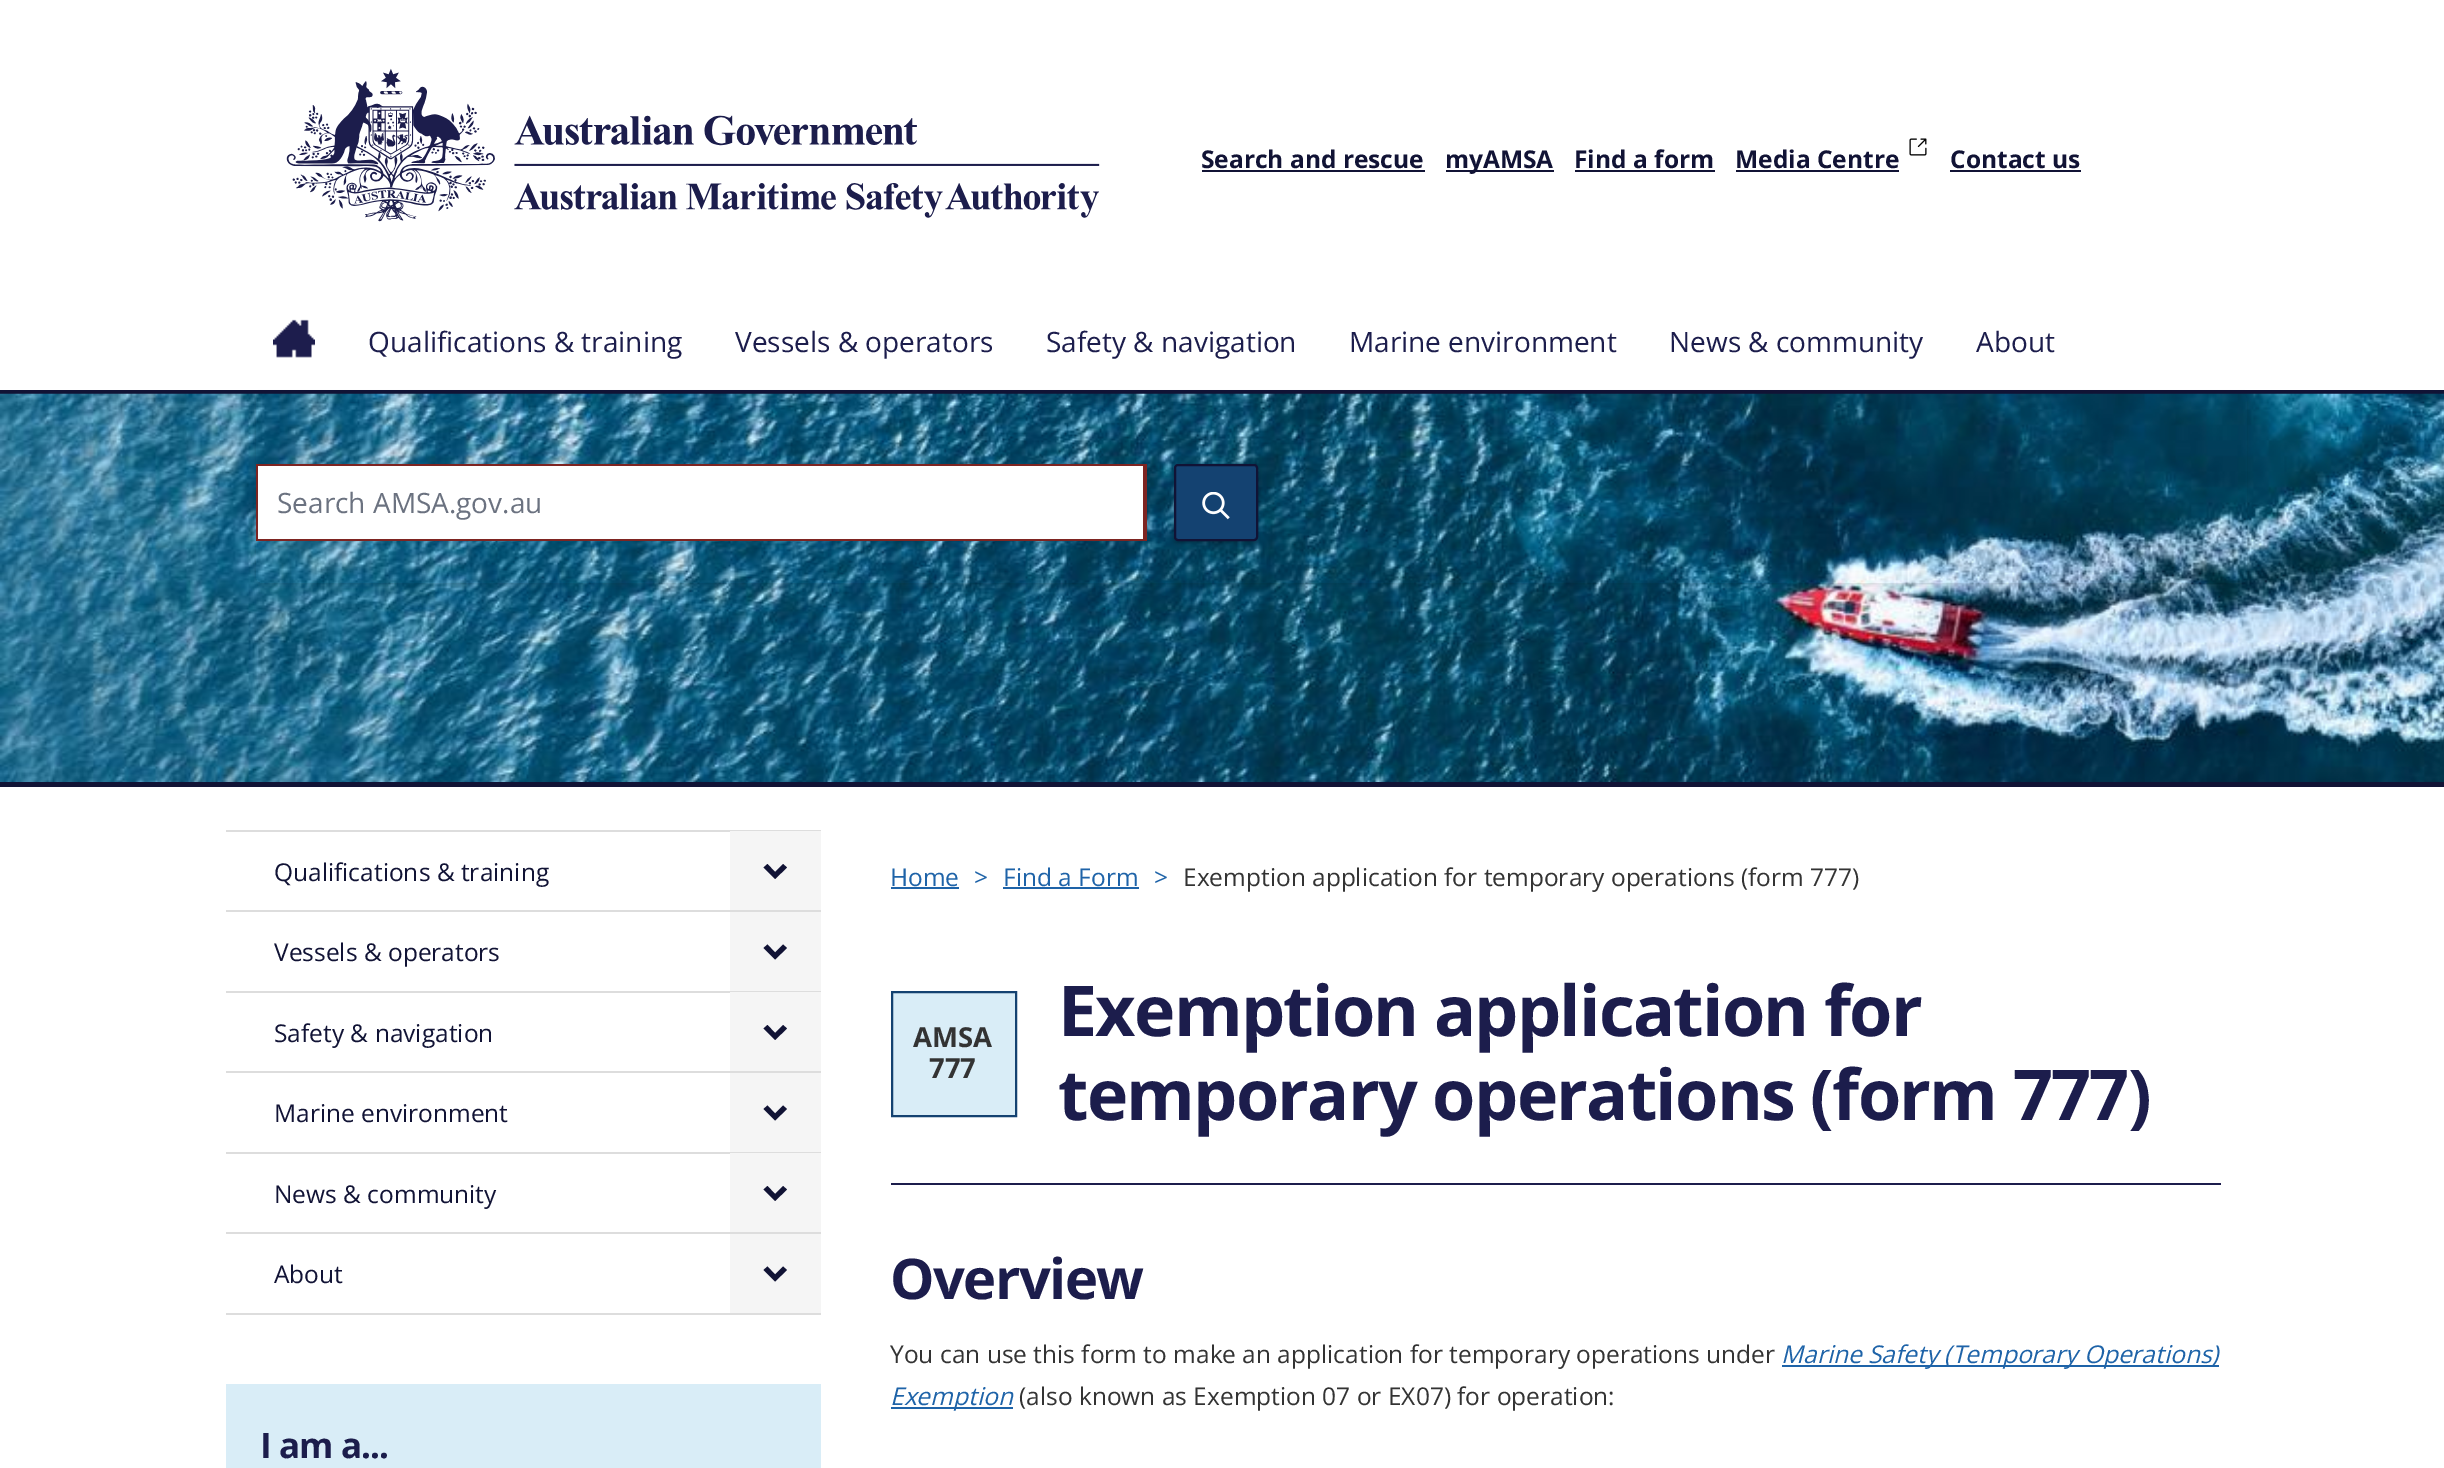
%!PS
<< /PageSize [2444 1468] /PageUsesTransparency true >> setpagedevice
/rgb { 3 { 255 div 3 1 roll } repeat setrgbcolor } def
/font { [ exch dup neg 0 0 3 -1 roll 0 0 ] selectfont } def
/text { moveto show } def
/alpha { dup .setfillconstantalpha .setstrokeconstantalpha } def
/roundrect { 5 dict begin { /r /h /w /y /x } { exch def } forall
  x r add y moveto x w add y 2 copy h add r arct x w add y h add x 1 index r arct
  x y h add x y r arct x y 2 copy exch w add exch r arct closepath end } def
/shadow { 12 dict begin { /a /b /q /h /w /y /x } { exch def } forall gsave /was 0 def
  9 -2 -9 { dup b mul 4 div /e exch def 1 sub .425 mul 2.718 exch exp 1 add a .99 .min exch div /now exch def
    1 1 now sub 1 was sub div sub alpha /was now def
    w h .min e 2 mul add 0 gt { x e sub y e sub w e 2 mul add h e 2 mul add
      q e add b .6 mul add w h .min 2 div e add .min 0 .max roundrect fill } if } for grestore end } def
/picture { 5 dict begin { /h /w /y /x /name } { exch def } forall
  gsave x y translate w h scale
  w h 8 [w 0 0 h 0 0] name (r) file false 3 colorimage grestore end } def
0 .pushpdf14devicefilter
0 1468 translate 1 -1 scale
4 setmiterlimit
255 255 255 rgb
0 0 2444 1468 rectfill
(img_01.rgb) 286 68 814 154 picture
17 19 53 rgb
1202 170 223 2 rectfill
1446 170 108 2 rectfill
1575 170 140 2 rectfill
(img_02.rgb) 1909 138 18 18 picture
1736 170 163 2 rectfill
1950 170 131 2 rectfill
0 390 2444 4 rectfill
(img_03.rgb) 273 319 42 39 picture
(img_04.rgb) 0 393 2444 389 picture
0 782 2444 5 rectfill
gsave
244 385 moveto 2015 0 rlineto 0 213 rlineto -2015 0 rlineto closepath 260 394 moveto 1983 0 rlineto 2 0 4 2 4 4 rcurveto 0 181 rlineto 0 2 -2 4 -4 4 rcurveto -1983 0 rlineto -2 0 -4 -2 -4 -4 rcurveto 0 -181 rlineto 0 -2 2 -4 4 -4 rcurveto closepath eoclip newpath
0 0 0 rgb
256 397 1991 189 4 3.5 0.1 shadow
grestore
255 255 255 rgb
258 466 885 73 rectfill
126 36 33 rgb
256 464 890 2 rectfill
1143 464 4 77 rectfill
256 539 890 2 rectfill
256 464 2 77 rectfill
0 0 0 rgb
1174 466 84 77 4 2 0.25 shadow
20 66 113 rgb
1175 465 82 75 3 roundrect gsave fill grestore
17 19 53 rgb
2 setlinewidth
stroke
(img_05.rgb) 1202 492 28 28 picture
221 221 221 rgb
226 830 595 2 rectfill
226 910 595 2 rectfill
245 245 245 rgb
730 831 91 79 rectfill
17 19 53 rgb
767.5 864 moveto -4 3.5 rlineto 11.5 11.5 rlineto 12 -11.5 rlineto -4 -3.5 rlineto -8 8 rlineto closepath fill
221 221 221 rgb
226 991 595 2 rectfill
245 245 245 rgb
730 912 91 79 rectfill
17 19 53 rgb
767.5 944.5 moveto -4 3.5 rlineto 11.5 11.5 rlineto 12 -11.5 rlineto -4 -3.5 rlineto -8 8 rlineto closepath fill
221 221 221 rgb
226 1071 595 2 rectfill
245 245 245 rgb
730 992 91 79 rectfill
17 19 53 rgb
767.5 1025 moveto -4 3.5 rlineto 11.5 11.5 rlineto 12 -11.5 rlineto -4 -3.5 rlineto -8 8 rlineto closepath fill
221 221 221 rgb
226 1152 595 2 rectfill
245 245 245 rgb
730 1073 91 79 rectfill
17 19 53 rgb
767.5 1105.5 moveto -4 3.5 rlineto 11.5 11.5 rlineto 12 -11.5 rlineto -4 -3.5 rlineto -8 8 rlineto closepath fill
221 221 221 rgb
226 1232 595 2 rectfill
245 245 245 rgb
730 1153 91 79 rectfill
17 19 53 rgb
767.5 1186 moveto -4 3.5 rlineto 11.5 11.5 rlineto 12 -11.5 rlineto -4 -3.5 rlineto -8 8 rlineto closepath fill
221 221 221 rgb
226 1313 595 2 rectfill
245 245 245 rgb
730 1234 91 79 rectfill
17 19 53 rgb
767.5 1266.5 moveto -4 3.5 rlineto 11.5 11.5 rlineto 12 -11.5 rlineto -4 -3.5 rlineto -8 8 rlineto closepath fill
217 237 247 rgb
226 1384 595 84 rectfill
30 99 168 rgb
891 887 68 2 rectfill
1003 887 136 2 rectfill
28 29 76 rgb
891 1183 1330 2 rectfill
217 237 247 rgb
892 992 moveto 124 0 rlineto 0 124 rlineto -124 0 rlineto closepath gsave fill grestore
20 66 113 rgb
stroke
30 99 168 rgb
1782 1365 437 2 rectfill
891 1407 122 2 rectfill
/OpenSans-Bold 24.5 font
17 19 53 rgb
(Search and rescue) 1201 168 text
(myAMSA) 1445 168 text
(Find a form) 1574 168 text
(Media Centre) 1735 168 text
(Contact us) 1950 168 text
/OpenSans-Regular 28 font
28 29 76 rgb
(Qualifications & training) 368 352 text
(Vessels & operators) 735 352 text
(Safety & navigation) 1046 352 text
(Marine environment) 1349 352 text
(News & community) 1669 352 text
(About) 1976 352 text
107 114 128 rgb
(Search AMSA.gov.au) 277 513 text
/OpenSans-Regular 24.5 font
17 19 53 rgb
(Qualifications & training) 274 881 text
(Vessels & operators) 274 961 text
(Safety & navigation) 274 1042 text
(Marine environment) 274 1122 text
(News & community) 274 1203 text
(About) 274 1283 text
/OpenSans-Bold 35 font
28 29 76 rgb
260 1458 moveto -0.9 0 (I am a...) ashow
/OpenSans-Regular 24.5 font
30 99 168 rgb
(Home) 890 886 text
(>) 974 886 text
(Find a Form) 1003 886 text
(>) 1154 886 text
51 51 51 rgb
(Exemption application for temporary operations \(form 777\)) 1183 886 text
/OpenSans-Bold 27.5 font
(AMSA) 913 1047 text
(777) 929 1078 text
/OpenSans-Bold 70 font
28 29 76 rgb
1058 1036 moveto -1.75 0 (Exemption application for) ashow
1058 1120 moveto -1.75 0 (temporary operations \(form 777\)) ashow
/OpenSans-Bold 56 font
890 1299 moveto -1.5 0 (Overview) ashow
/OpenSans-Regular 24.5 font
51 51 51 rgb
(You can use this form to make an application for temporary operations under) 890 1363 text
/OpenSans-Italic 24.5 font
30 99 168 rgb
(Marine Safety \(Temporary Operations\)) 1781 1363 text
(Exemption) 890 1405 text
/OpenSans-Regular 24.5 font
51 51 51 rgb
(\(also known as Exemption 07 or EX07\) for operation:) 1019 1405 text
.poppdf14devicefilter showpage
